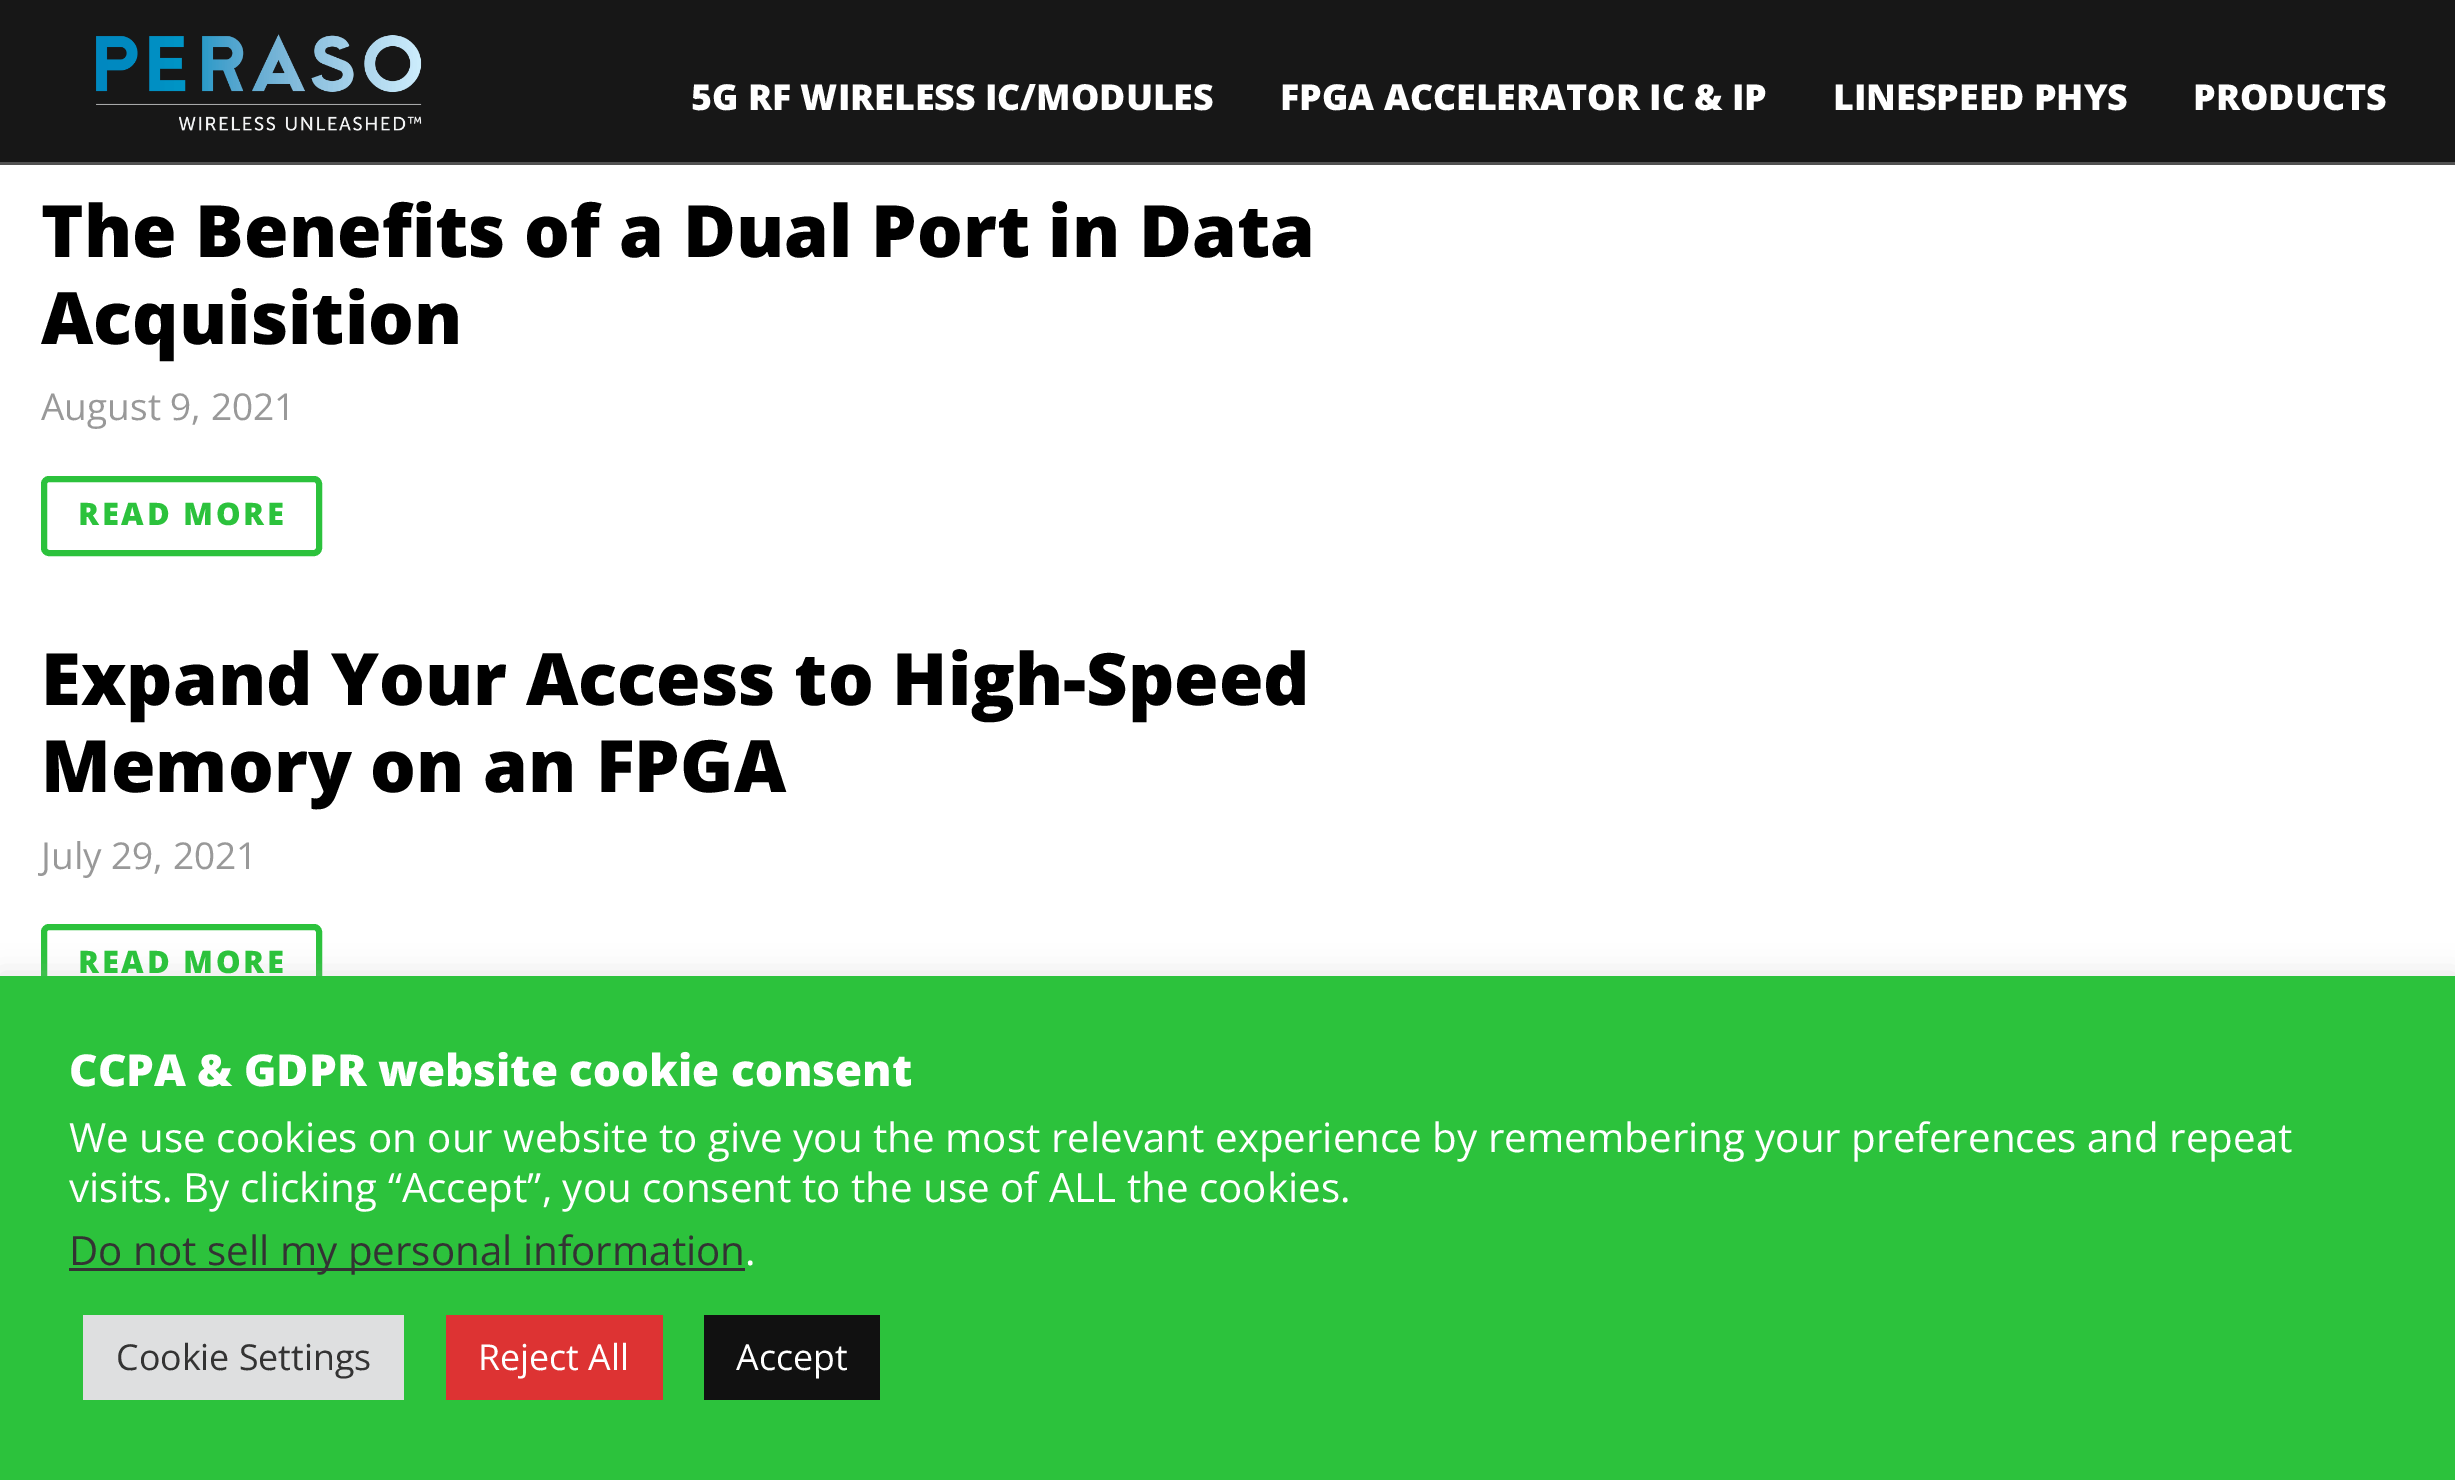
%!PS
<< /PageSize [2455 1480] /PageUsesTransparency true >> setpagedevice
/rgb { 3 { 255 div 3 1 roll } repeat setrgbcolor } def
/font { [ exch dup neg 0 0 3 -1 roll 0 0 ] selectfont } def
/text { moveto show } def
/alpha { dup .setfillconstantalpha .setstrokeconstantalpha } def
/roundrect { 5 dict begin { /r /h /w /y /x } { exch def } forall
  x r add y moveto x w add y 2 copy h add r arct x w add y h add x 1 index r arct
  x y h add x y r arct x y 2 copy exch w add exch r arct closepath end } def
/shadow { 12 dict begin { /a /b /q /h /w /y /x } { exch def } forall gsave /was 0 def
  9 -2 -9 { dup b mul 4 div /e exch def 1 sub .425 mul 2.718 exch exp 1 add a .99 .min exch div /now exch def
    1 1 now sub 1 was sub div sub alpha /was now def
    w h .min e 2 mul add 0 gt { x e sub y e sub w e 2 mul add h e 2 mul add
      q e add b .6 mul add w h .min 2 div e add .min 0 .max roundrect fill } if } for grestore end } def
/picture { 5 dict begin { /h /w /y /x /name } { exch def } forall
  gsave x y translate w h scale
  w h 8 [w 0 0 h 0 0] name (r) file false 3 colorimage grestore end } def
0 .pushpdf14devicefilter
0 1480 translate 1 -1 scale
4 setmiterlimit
255 255 255 rgb
0 0 2455 1480 rectfill
23 23 23 rgb
0 0 2455 162 rectfill
81 81 81 rgb
0 162 2455 3 rectfill
(img_01.rgb) 96 34 326 97 picture
44 194 60 rgb
6 setlinewidth
44 479 275 74 5 roundrect stroke
44 927 275 74 5 roundrect stroke
172 171 171 rgb
0 974 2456 506 0 14 0.3 shadow
44 194 60 rgb
0 976 2455 504 rectfill
51 51 51 rgb
69 1268 676 3 rectfill
222 223 224 rgb
83 1315 321 85 rectfill
221 51 51 rgb
446 1315 217 85 rectfill
17 17 17 rgb
704 1315 176 85 rectfill
/OpenSans-ExtraBold 35.75 font
255 255 255 rgb
(5G RF WIRELESS IC/MODULES) 691 110 text
(FPGA ACCELERATOR IC & IP) 1280 110 text
(LINESPEED PHYS) 1833 110 text
(PRODUCTS) 2193 110 text
/OpenSans-ExtraBold 72.2 font
0 0 0 rgb
(The Benefits of a Dual Port in Data) 41 257 text
(Acquisition) 41 344 text
/OpenSans-Regular 37 font
153 153 153 rgb
(August 9, 2021) 41 420 text
/OpenSans-ExtraBold 31 font
44 194 60 rgb
78 525 moveto 2.75 0 (READ MORE) ashow
/OpenSans-ExtraBold 72.2 font
0 0 0 rgb
(Expand Your Access to High-Speed) 41 705 text
(Memory on an FPGA) 41 792 text
/OpenSans-Regular 37 font
153 153 153 rgb
(July 29, 2021) 41 869 text
/OpenSans-ExtraBold 31 font
44 194 60 rgb
78 973 moveto 2.75 0 (READ MORE) ashow
/OpenSans-ExtraBold 44 font
255 255 255 rgb
(CCPA & GDPR website cookie consent) 69 1086 text
/OpenSans-Regular 40.33 font
(We use cookies on our website to give you the most relevant experience by remembering your preferences and repeat) 69 1152 text
(visits. By clicking “Accept”, you consent to the use of ALL the cookies.) 69 1202 text
51 51 51 rgb
(Do not sell my personal information) 69 1265 text
255 255 255 rgb
(.) 745 1265 text
/OpenSans-Regular 35.75 font
51 51 51 rgb
(Cookie Settings) 116 1370 text
255 255 255 rgb
(Reject All) 478 1370 text
(Accept) 736 1370 text
.poppdf14devicefilter showpage
